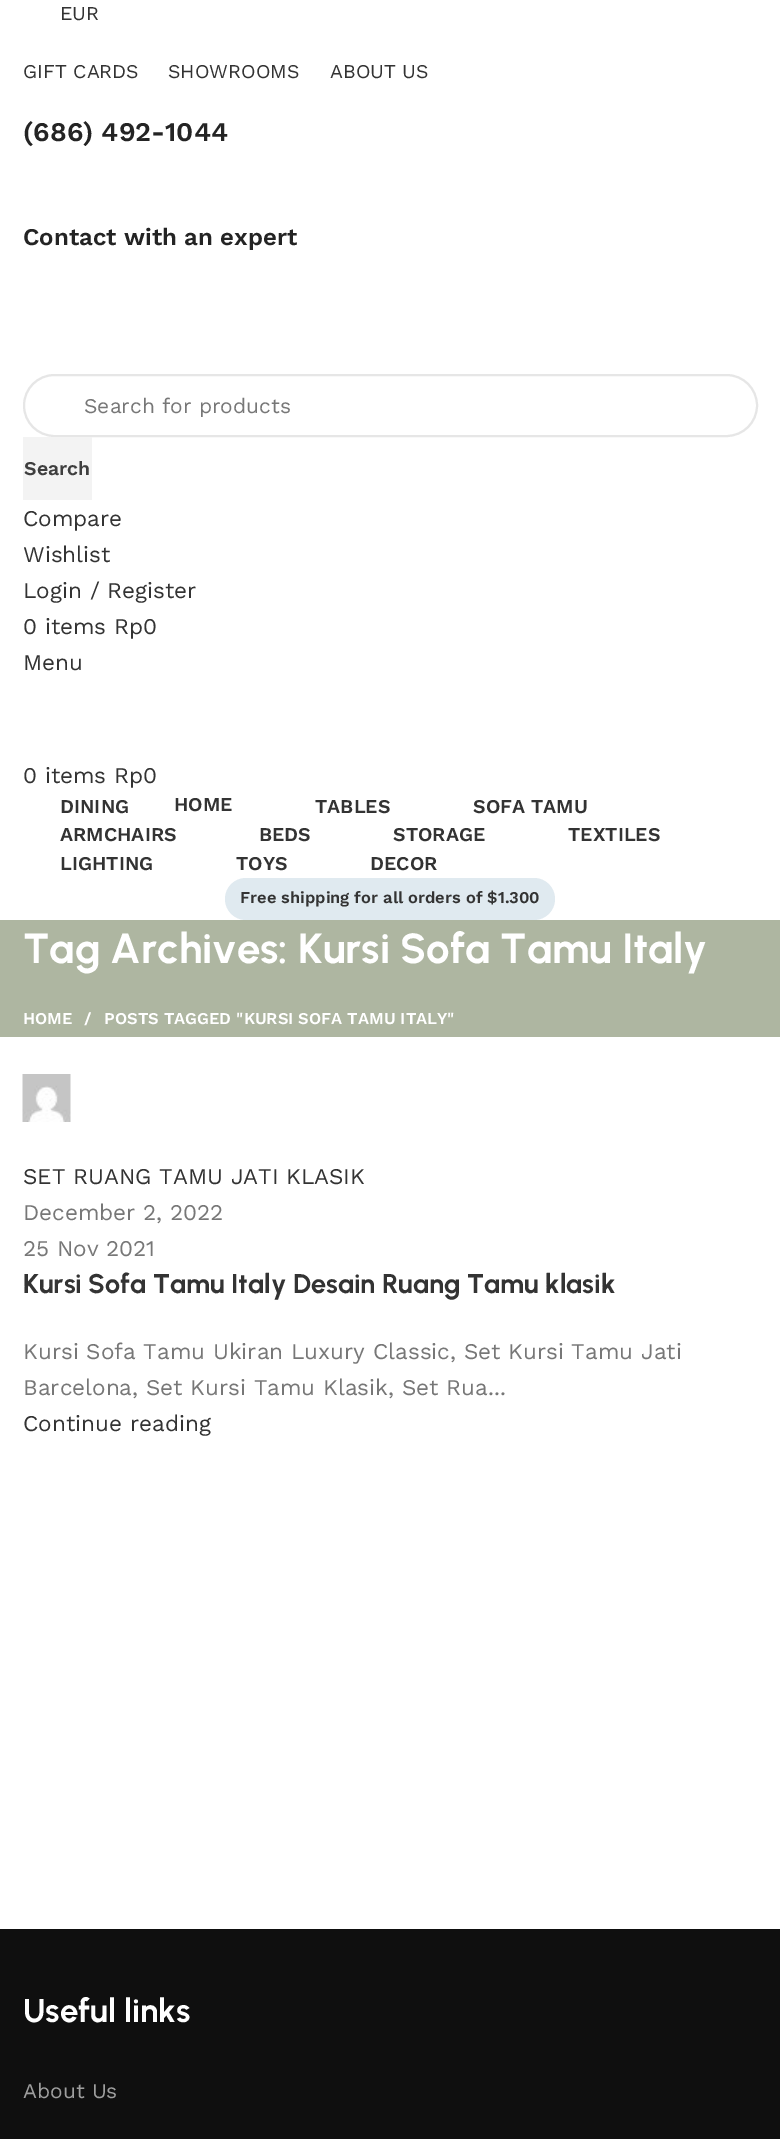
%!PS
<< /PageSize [780 2139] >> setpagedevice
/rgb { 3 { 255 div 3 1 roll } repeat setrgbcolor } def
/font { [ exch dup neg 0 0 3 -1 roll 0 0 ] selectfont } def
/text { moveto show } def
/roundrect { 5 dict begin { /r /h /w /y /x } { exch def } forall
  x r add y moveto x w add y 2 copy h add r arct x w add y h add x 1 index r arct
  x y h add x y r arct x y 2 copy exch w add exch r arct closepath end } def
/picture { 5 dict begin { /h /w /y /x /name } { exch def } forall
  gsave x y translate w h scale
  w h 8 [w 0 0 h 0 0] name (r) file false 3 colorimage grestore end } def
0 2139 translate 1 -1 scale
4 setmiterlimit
255 255 255 rgb
0 0 780 2139 rectfill
230 230 230 rgb
2 setlinewidth
24 375 733 61 30.5 roundrect stroke
243 243 243 rgb
23 437 69 63 rectfill
224 234 240 rgb
225 878 330 42 21 roundrect fill
174 182 161 rgb
0 920 780 117 rectfill
(img_01.rgb) 22 1074 49 48 picture
15 15 15 rgb
0 1929 780 210 rectfill
/WorkSans-Regular 19.5 font
51 51 51 rgb
(EUR) 60 20 text
(GIFT CARDS) 23 78 text
(SHOWROOMS) 168 78 text
(ABOUT US) 330 78 text
/WorkSans-SemiBold 27 font
36 36 36 rgb
(\(686\) 492-1044) 23 141 text
/WorkSans-SemiBold 24 font
(Contact with an expert) 23 245 text
gsave
84 393 650 24 rectclip
/WorkSans-Regular 21 font
119 119 119 rgb
(Search for products) 84 413 text
grestore
/WorkSans-SemiBold 19.5 font
62 62 62 rgb
(Search) 24 475 text
/WorkSans-Regular 22.5 font
51 51 51 rgb
(Compare) 23 526 text
(Wishlist) 23 562 text
(Login / Register) 23 598 text
(0 items Rp0) 23 634 text
(Menu) 23 670 text
(0 items Rp0) 23 783 text
/WorkSans-SemiBold 19.5 font
(DINING) 60 813 text
(HOME) 174 811 text
(TABLES) 315 813 text
(SOFA TAMU) 473 813 text
(ARMCHAIRS) 60 841 text
(BEDS) 259 841 text
(STORAGE) 393 841 text
(TEXTILES) 568 841 text
(LIGHTING) 60 870 text
(TOYS) 236 870 text
(DECOR) 370 870 text
/WorkSans-SemiBold 16.5 font
(Free shipping for all orders of $1.300) 240 903 text
/Urbanist-Bold 42 font
255 255 255 rgb
(Tag Archives: Kursi Sofa Tamu Italy) 23 963 text
/WorkSans-SemiBold 16.5 font
(HOME) 23 1024 text
(/) 84 1024 text
(POSTS TAGGED "KURSI SOFA TAMU ITALY") 104 1024 text
/WorkSans-Regular 22.5 font
51 51 51 rgb
(SET RUANG TAMU JATI KLASIK) 23 1184 text
119 119 119 rgb
(December 2, 2022) 23 1220 text
(25 Nov 2021) 23 1256 text
/Urbanist-Bold 27 font
51 51 51 rgb
(Kursi Sofa Tamu Italy Desain Ruang Tamu klasik) 23 1293 text
/WorkSans-Regular 22.5 font
119 119 119 rgb
(Kursi Sofa Tamu Ukiran Luxury Classic, Set Kursi Tamu Jati) 23 1359 text
(Barcelona, Set Kursi Tamu Klasik, Set Rua...) 23 1395 text
51 51 51 rgb
(Continue reading) 23 1431 text
/Urbanist-Bold 33 font
255 255 255 rgb
(Useful links) 23 2022 text
/WorkSans-Regular 21 font
159 159 159 rgb
(About Us) 23 2098 text
showpage
